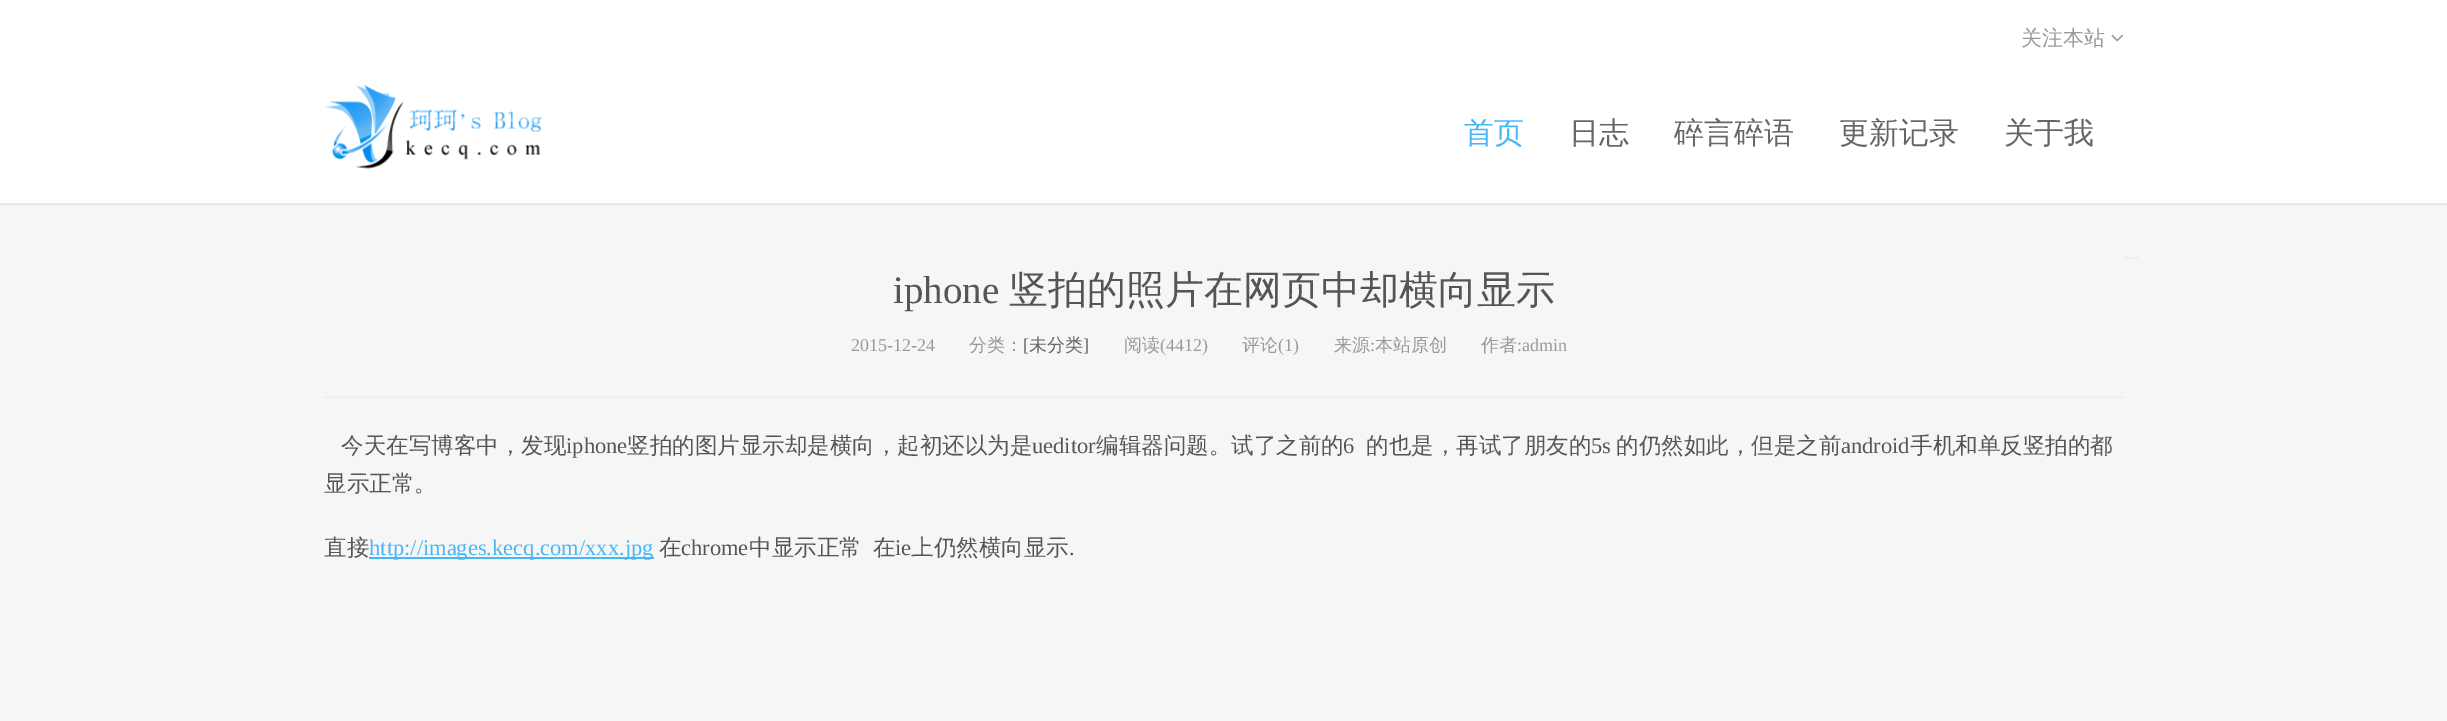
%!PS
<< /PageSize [2447 721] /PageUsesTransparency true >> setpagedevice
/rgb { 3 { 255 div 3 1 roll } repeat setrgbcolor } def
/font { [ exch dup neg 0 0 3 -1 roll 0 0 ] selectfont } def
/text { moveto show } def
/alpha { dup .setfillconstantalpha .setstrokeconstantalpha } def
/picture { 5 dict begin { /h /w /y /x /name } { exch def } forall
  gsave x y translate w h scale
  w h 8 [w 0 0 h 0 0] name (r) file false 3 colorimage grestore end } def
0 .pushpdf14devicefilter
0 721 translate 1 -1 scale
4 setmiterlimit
246 246 246 rgb
0 0 2447 721 rectfill
255 255 255 rgb
0 0 2447 204 rectfill
0.08 alpha
0 0 0 rgb
0 203 2447 2 rectfill
1 alpha
(img_01.rgb) 2111 34 12 8 picture
(img_02.rgb) 325 84 217 85 picture
238 238 238 rgb
2124 257 15 2 rectfill
324 396 1800 2 rectfill
69 182 247 rgb
369 557 285 2 rectfill
/WenQuanYiZenHei-Medium 21 font
153 153 153 rgb
(关注本站) 2021 45 text
/WenQuanYiZenHei-Medium 30 font
69 182 247 rgb
(首页) 1464 143 text
102 102 102 rgb
(日志) 1569 143 text
(碎言碎语) 1674 143 text
(更新记录) 1839 143 text
(关于我) 2004 143 text
/LiberationSerif-Regular 39 font
85 85 85 rgb
(iphone) 893 303 text
/WenQuanYiZenHei-Medium 39 font
(竖拍的照片在网页中却横向显示) 1009 303 text
/LiberationSerif-Regular 18 font
153 153 153 rgb
(2015-12-24) 851 351 text
/WenQuanYiZenHei-Medium 18 font
(分类：) 969 351 text
/LiberationSerif-Regular 18 font
102 102 102 rgb
([) 1023 351 text
/WenQuanYiZenHei-Medium 18 font
(未分类) 1029 351 text
/LiberationSerif-Regular 18 font
(]) 1083 351 text
/WenQuanYiZenHei-Medium 18 font
153 153 153 rgb
(阅读) 1124 351 text
/LiberationSerif-Regular 18 font
(\(4412\)) 1160 351 text
/WenQuanYiZenHei-Medium 18 font
(评论) 1242 351 text
/LiberationSerif-Regular 18 font
(\(1\)) 1278 351 text
/WenQuanYiZenHei-Medium 18 font
(来源) 1334 351 text
/LiberationSerif-Regular 18 font
(:) 1370 351 text
/WenQuanYiZenHei-Medium 18 font
(本站原创) 1375 351 text
(作者) 1481 351 text
/LiberationSerif-Regular 18 font
(:admin) 1517 351 text
/WenQuanYiZenHei-Medium 22.5 font
85 85 85 rgb
(今天在写博客中，发现) 341 453 text
/LiberationSerif-Regular 22.5 font
(iphone) 566 453 text
/WenQuanYiZenHei-Medium 22.5 font
(竖拍的图片显示却是横向，起初还以为是) 627 453 text
/LiberationSerif-Regular 22.5 font
(ueditor) 1032 453 text
/WenQuanYiZenHei-Medium 22.5 font
(编辑器问题。试了之前的) 1096 453 text
/LiberationSerif-Regular 22.5 font
(6) 1343 453 text
/WenQuanYiZenHei-Medium 22.5 font
(的也是，再试了朋友的) 1366 453 text
/LiberationSerif-Regular 22.5 font
(5s) 1591 453 text
/WenQuanYiZenHei-Medium 22.5 font
(的仍然如此，但是之前) 1616 453 text
/LiberationSerif-Regular 22.5 font
(android) 1841 453 text
/WenQuanYiZenHei-Medium 22.5 font
(手机和单反竖拍的都) 1910 453 text
(显示正常。) 324 491 text
(直接) 324 555 text
/LiberationSerif-Regular 22.5 font
69 182 247 rgb
(http://images.kecq.com/xxx.jpg) 369 555 text
/WenQuanYiZenHei-Medium 22.5 font
85 85 85 rgb
(在) 659 555 text
/LiberationSerif-Regular 22.5 font
(chrome) 681 555 text
/WenQuanYiZenHei-Medium 22.5 font
(中显示正常) 749 555 text
(在) 873 555 text
/LiberationSerif-Regular 22.5 font
(ie) 895 555 text
/WenQuanYiZenHei-Medium 22.5 font
(上仍然横向显示) 911 555 text
/LiberationSerif-Regular 22.5 font
(.) 1069 555 text
.poppdf14devicefilter showpage
